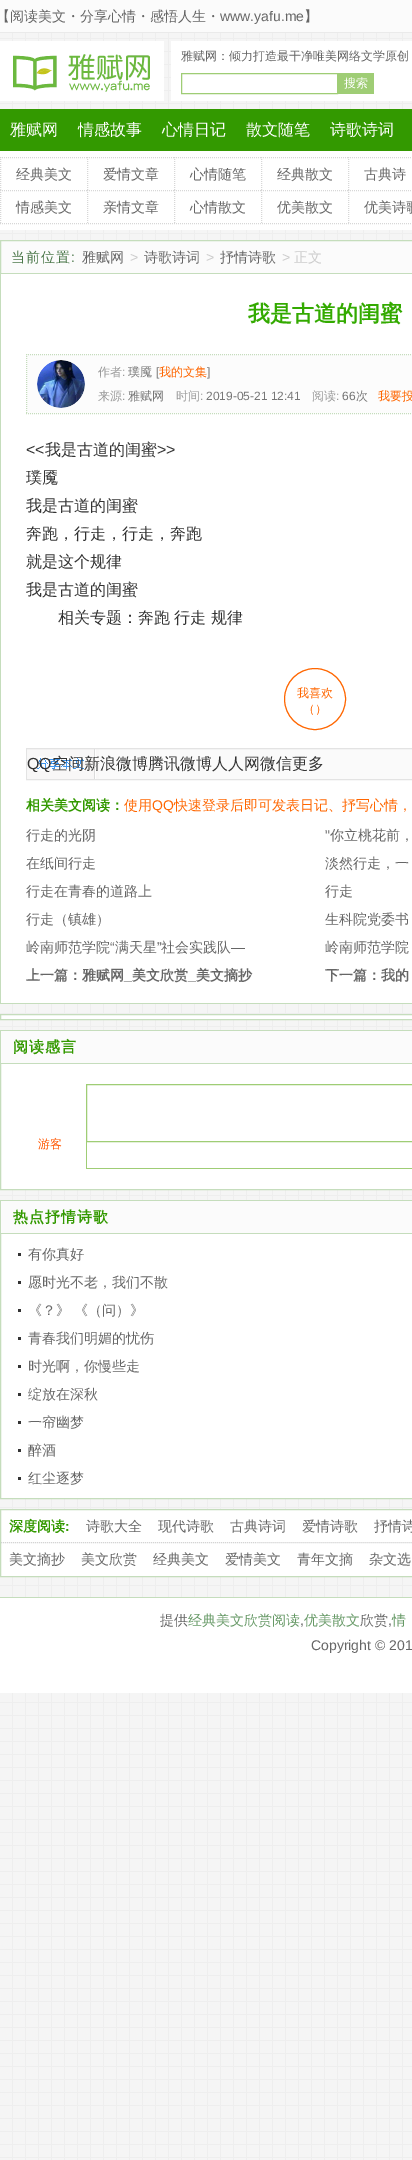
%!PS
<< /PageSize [412 2160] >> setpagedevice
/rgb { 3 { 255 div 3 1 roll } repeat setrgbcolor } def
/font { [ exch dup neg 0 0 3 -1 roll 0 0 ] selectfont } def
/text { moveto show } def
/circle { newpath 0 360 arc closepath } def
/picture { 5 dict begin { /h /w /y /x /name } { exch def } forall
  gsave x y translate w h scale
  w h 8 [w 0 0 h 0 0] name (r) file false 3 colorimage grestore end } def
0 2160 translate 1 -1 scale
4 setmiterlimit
255 255 255 rgb
0 0 412 2160 rectfill
(img_01.rgb) 0 33 412 2127 picture
251 251 251 rgb
0 0 412 32 rectfill
234 234 234 rgb
0 32 412 1 rectfill
(img_02.rgb) 0 41 164 60 picture
255 255 255 rgb
171 41 241 60 rectfill
159 205 117 rgb
181.5 73.5 156 20 rectstroke
338 73 36 21 rectfill
51 153 0 rgb
0 109 412 42 rectfill
255 255 255 rgb
0 151 412 79 rectfill
215 215 215 rgb
[1 1] 0 setdash
0 223.5 moveto 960 0 rlineto stroke
0 157.5 moveto 87 0 rlineto stroke
0.5 157 moveto 0 33 rlineto stroke
87 157.5 moveto 87 0 rlineto stroke
87.5 157 moveto 0 33 rlineto stroke
174 157.5 moveto 87 0 rlineto stroke
174.5 157 moveto 0 33 rlineto stroke
261 157.5 moveto 87 0 rlineto stroke
261.5 157 moveto 0 33 rlineto stroke
348 157.5 moveto 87 0 rlineto 348.5 157 moveto 0 33 rlineto stroke
0 190.5 moveto 87 0 rlineto stroke
0.5 190 moveto 0 33 rlineto stroke
87 190.5 moveto 87 0 rlineto stroke
87.5 190 moveto 0 33 rlineto stroke
174 190.5 moveto 87 0 rlineto stroke
174.5 190 moveto 0 33 rlineto stroke
261 190.5 moveto 87 0 rlineto stroke
261.5 190 moveto 0 33 rlineto stroke
348 190.5 moveto 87 0 rlineto 348.5 190 moveto 0 33 rlineto stroke
251 251 251 rgb
0.5 240.5 moveto 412 0 rlineto 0 33 rlineto -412 0 rlineto closepath gsave fill grestore
197 221 188 rgb
[] 0 setdash
stroke
255 255 255 rgb
1 274 411 729 rectfill
197 221 188 rgb
0 1003 412 1 rectfill
0 274 1 730 rectfill
252 252 252 rgb
26 354 386 60 rectfill
197 221 188 rgb
[1 1] 0 setdash
26 354.5 moveto 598 0 rlineto stroke
26 413.5 moveto 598 0 rlineto stroke
26.5 354 moveto 0 60 rlineto stroke
(img_03.rgb) 37 360 48 48 picture
255 102 0 rgb
[] 0 setdash
315 699 30.5 circle stroke
250 250 250 rgb
99 749 313 30 rectfill
(img_04.rgb) 27 749 72 30 picture
227 227 227 rgb
26.5 748.5 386 31 rectstroke
255 255 255 rgb
0.5 1014.5 moveto 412 0 rlineto 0 5 rlineto -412 0 rlineto closepath gsave fill grestore
197 221 188 rgb
stroke
255 255 255 rgb
1 1064 411 125 rectfill
197 221 188 rgb
0.5 1030.5 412 159 rectstroke
251 251 251 rgb
1 1031 411 32 rectfill
197 221 188 rgb
1 1063 411 1 rectfill
159 205 117 rgb
86.5 1084.5 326 57 rectstroke
86 1168 326 1 rectfill
86 1142 1 27 rectfill
255 255 255 rgb
1 1234 411 264 rectfill
197 221 188 rgb
0.5 1200.5 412 298 rectstroke
251 251 251 rgb
1 1201 411 32 rectfill
197 221 188 rgb
1 1233 411 1 rectfill
51 51 51 rgb
18 1253 3 3 rectfill
18 1281 3 3 rectfill
18 1309 3 3 rectfill
18 1337 3 3 rectfill
18 1365 3 3 rectfill
18 1393 3 3 rectfill
18 1421 3 3 rectfill
18 1449 3 3 rectfill
18 1477 3 3 rectfill
255 255 255 rgb
0.5 1509.5 moveto 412 0 rlineto 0 67 rlineto -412 0 rlineto closepath gsave fill grestore
197 221 188 rgb
stroke
212 212 212 rgb
[1 1] 0 setdash
1 1542.5 moveto 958 0 rlineto stroke
255 255 255 rgb
0 1598 412 95 rectfill
197 221 188 rgb
0 1597 412 1 rectfill
/WenQuanYiZenHei-Medium 14 font
102 102 102 rgb
(【阅读美文・分享心情・感悟人生・) -4 21 text
/LiberationSans-Regular 14 font
(www.yafu.me) 220 21 text
/WenQuanYiZenHei-Medium 14 font
(】) 304 21 text
/WenQuanYiZenHei-Medium 12 font
(雅赋网：倾力打造最干净唯美网络文学原创) 181 60 text
255 255 255 rgb
(搜索) 344 87 text
/WenQuanYiZenHei-Medium 16 font
(雅赋网) 10 135 text
(情感故事) 78 135 text
(心情日记) 162 135 text
(散文随笔) 246 135 text
(诗歌诗词) 330 135 text
/WenQuanYiZenHei-Medium 14 font
102 102 102 rgb
(经典美文) 16 179 text
(爱情文章) 103 179 text
(心情随笔) 190 179 text
(经典散文) 277 179 text
(古典诗) 364 179 text
(情感美文) 16 212 text
(亲情文章) 103 212 text
(心情散文) 190 212 text
(优美散文) 277 212 text
(优美诗歌) 364 212 text
74 119 73 rgb
11 262 moveto 1 0 (当前位置) ashow
/LiberationSans-Regular 14 font
71 262 moveto 1 0 (:) ashow
/WenQuanYiZenHei-Medium 14 font
102 102 102 rgb
(雅赋网) 82 262 text
/LiberationSans-Regular 14 font
204 204 204 rgb
(>) 130 262 text
/WenQuanYiZenHei-Medium 14 font
102 102 102 rgb
(诗歌诗词) 144 262 text
/LiberationSans-Regular 14 font
204 204 204 rgb
(>) 206 262 text
/WenQuanYiZenHei-Medium 14 font
102 102 102 rgb
(抒情诗歌) 220 262 text
/LiberationSans-Regular 14 font
204 204 204 rgb
(>) 282 262 text
/WenQuanYiZenHei-Medium 14 font
(正文) 294 262 text
/WenQuanYiZenHei-Bold 22 font
51 170 0 rgb
(我是古道的闺蜜) 248 321 text
/WenQuanYiZenHei-Medium 12 font
153 153 153 rgb
(作者) 98 376 text
/LiberationSans-Regular 12 font
(:) 122 376 text
/WenQuanYiZenHei-Medium 12 font
119 119 119 rgb
(璞魇) 128 376 text
/LiberationSans-Regular 12 font
([) 156 376 text
/WenQuanYiZenHei-Medium 12 font
255 102 0 rgb
(我的文集) 159 376 text
/LiberationSans-Regular 12 font
119 119 119 rgb
(]) 207 376 text
/WenQuanYiZenHei-Medium 12 font
153 153 153 rgb
(来源) 98 400 text
/LiberationSans-Regular 12 font
(:) 122 400 text
/WenQuanYiZenHei-Medium 12 font
119 119 119 rgb
(雅赋网) 128 400 text
153 153 153 rgb
(时间) 176 400 text
/LiberationSans-Regular 12 font
(:) 200 400 text
119 119 119 rgb
(2019-05-21 12:41) 206 400 text
/WenQuanYiZenHei-Medium 12 font
153 153 153 rgb
(阅读) 312 400 text
/LiberationSans-Regular 12 font
(:) 336 400 text
119 119 119 rgb
(66) 342 400 text
/WenQuanYiZenHei-Medium 12 font
(次) 356 400 text
255 102 0 rgb
(我要投) 378 400 text
/LiberationSans-Regular 16 font
51 51 51 rgb
(<<) 26 455 text
/WenQuanYiZenHei-Medium 16 font
(我是古道的闺蜜) 45 455 text
/LiberationSans-Regular 16 font
(>>) 157 455 text
/WenQuanYiZenHei-Medium 16 font
(璞魇) 26 483 text
(我是古道的闺蜜) 26 511 text
(奔跑，行走，行走，奔跑) 26 539 text
(就是这个规律) 26 567 text
(我是古道的闺蜜) 26 595 text
(相关专题：奔跑) 58 623 text
(行走) 174 623 text
(规律) 211 623 text
/WenQuanYiZenHei-Medium 12 font
255 102 0 rgb
(我喜欢) 297 697 text
(（）) 303 713 text
/LiberationSans-Regular 16 font
51 51 51 rgb
(QQ) 27 769 text
/WenQuanYiZenHei-Medium 16 font
(空间新浪微博腾讯微博人人网微信更多) 52 769 text
/WenQuanYiZenHei-Bold 14 font
51 153 0 rgb
(相关美文阅读：) 26 810 text
/WenQuanYiZenHei-Medium 14 font
255 102 0 rgb
(使用) 124 810 text
/LiberationSans-Regular 14 font
(QQ) 152 810 text
/WenQuanYiZenHei-Medium 14 font
(快速登录后即可发表日记、抒写心情，) 174 810 text
102 102 102 rgb
(行走的光阴) 26 840 text
/LiberationSans-Regular 14 font
(") 325 840 text
/WenQuanYiZenHei-Medium 14 font
(你立桃花前，) 330 840 text
(在纸间行走) 26 868 text
(淡然行走，一) 325 868 text
(行走在青春的道路上) 26 896 text
(行走) 325 896 text
(行走（镇雄）) 26 924 text
(生科院党委书) 325 924 text
(岭南师范学院) 26 952 text
/LiberationSans-Regular 14 font
(“) 110 952 text
/WenQuanYiZenHei-Medium 14 font
(满天星) 115 952 text
/LiberationSans-Regular 14 font
(”) 157 952 text
/WenQuanYiZenHei-Medium 14 font
(社会实践队) 161 952 text
/LiberationSans-Regular 14 font
(—) 231 952 text
/WenQuanYiZenHei-Medium 14 font
(岭南师范学院) 325 952 text
/WenQuanYiZenHei-Bold 14 font
(上一篇：雅赋网) 26 980 text
/LiberationSans-Bold 14 font
(_) 124 980 text
/WenQuanYiZenHei-Bold 14 font
(美文欣赏) 132 980 text
/LiberationSans-Bold 14 font
(_) 188 980 text
/WenQuanYiZenHei-Bold 14 font
(美文摘抄) 196 980 text
(下一篇：我的) 325 980 text
/WenQuanYiZenHei-Bold 15 font
51 153 0 rgb
13 1052 moveto 1 0 (阅读感言) ashow
/WenQuanYiZenHei-Medium 12 font
255 85 0 rgb
(游客) 38 1148 text
/WenQuanYiZenHei-Bold 15 font
51 153 0 rgb
13 1222 moveto 1 0 (热点抒情诗歌) ashow
/WenQuanYiZenHei-Medium 14 font
102 102 102 rgb
(有你真好) 28 1259 text
(愿时光不老，我们不散) 28 1287 text
(《？》 《（问）》) 28 1315 text
(青春我们明媚的忧伤) 28 1343 text
(时光啊，你慢些走) 28 1371 text
(绽放在深秋) 28 1399 text
(一帘幽梦) 28 1427 text
(醉酒) 28 1455 text
(红尘逐梦) 28 1483 text
/WenQuanYiZenHei-Bold 14 font
51 153 0 rgb
(深度阅读) 9 1531 text
/LiberationSans-Bold 14 font
(:) 65 1531 text
/WenQuanYiZenHei-Medium 14 font
102 102 102 rgb
(诗歌大全) 86 1531 text
(现代诗歌) 158 1531 text
(古典诗词) 230 1531 text
(爱情诗歌) 302 1531 text
(抒情诗) 374 1531 text
(美文摘抄) 9 1564 text
(美文欣赏) 81 1564 text
(经典美文) 153 1564 text
(爱情美文) 225 1564 text
(青年文摘) 297 1564 text
(杂文选) 369 1564 text
(提供) 160 1625 text
102 153 102 rgb
(经典美文欣赏阅读) 188 1625 text
/LiberationSans-Regular 14 font
102 102 102 rgb
(,) 300 1625 text
/WenQuanYiZenHei-Medium 14 font
102 153 102 rgb
(优美散文) 304 1625 text
102 102 102 rgb
(欣赏) 360 1625 text
/LiberationSans-Regular 14 font
(,) 388 1625 text
/WenQuanYiZenHei-Medium 14 font
102 153 102 rgb
(情) 392 1625 text
/LiberationSans-Regular 14 font
102 102 102 rgb
(Copyright © 201) 311 1650 text
showpage
